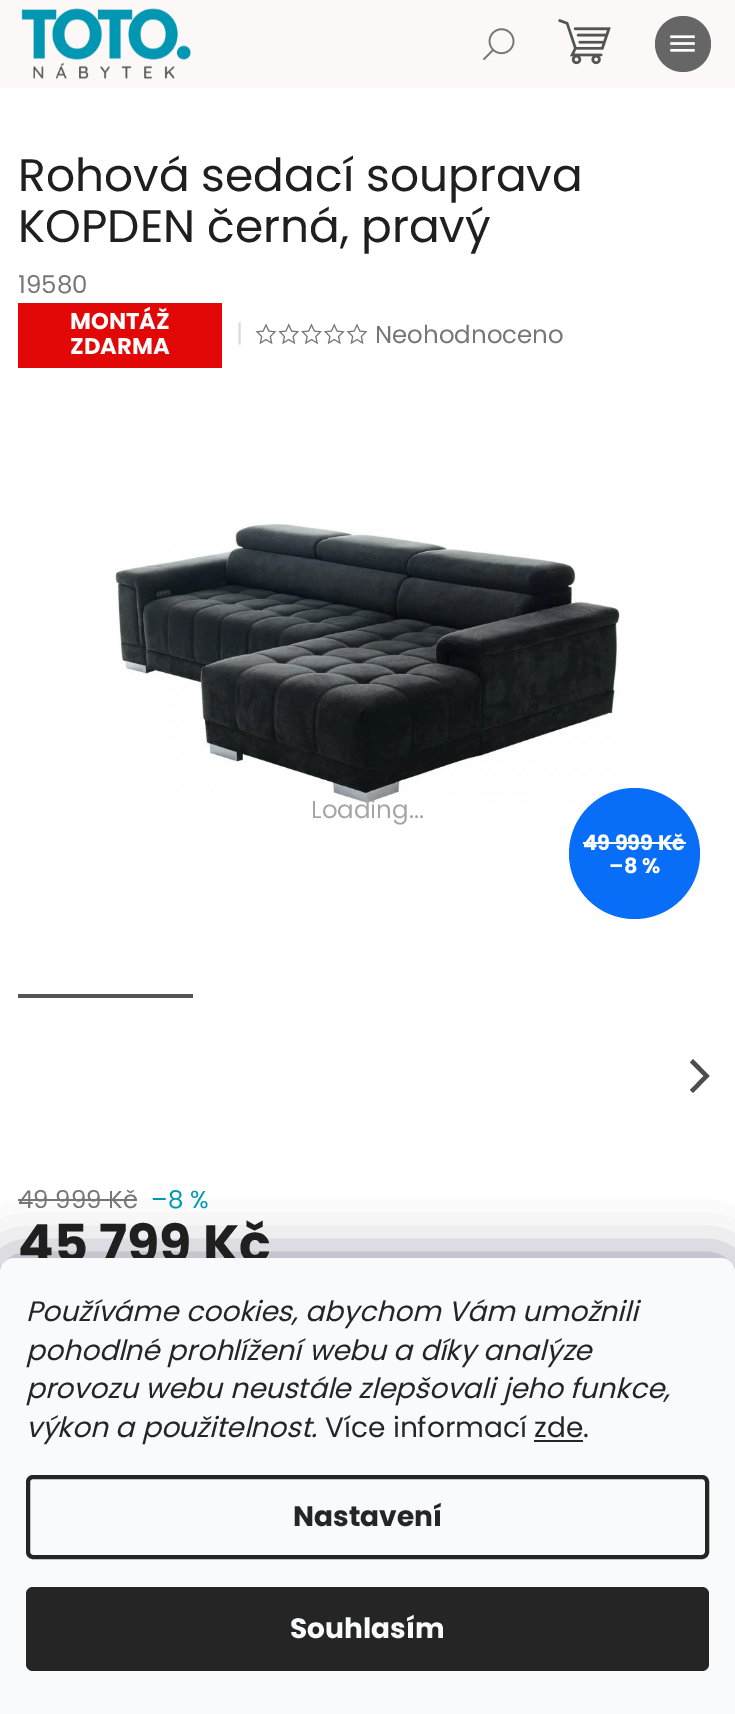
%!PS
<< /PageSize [735 1714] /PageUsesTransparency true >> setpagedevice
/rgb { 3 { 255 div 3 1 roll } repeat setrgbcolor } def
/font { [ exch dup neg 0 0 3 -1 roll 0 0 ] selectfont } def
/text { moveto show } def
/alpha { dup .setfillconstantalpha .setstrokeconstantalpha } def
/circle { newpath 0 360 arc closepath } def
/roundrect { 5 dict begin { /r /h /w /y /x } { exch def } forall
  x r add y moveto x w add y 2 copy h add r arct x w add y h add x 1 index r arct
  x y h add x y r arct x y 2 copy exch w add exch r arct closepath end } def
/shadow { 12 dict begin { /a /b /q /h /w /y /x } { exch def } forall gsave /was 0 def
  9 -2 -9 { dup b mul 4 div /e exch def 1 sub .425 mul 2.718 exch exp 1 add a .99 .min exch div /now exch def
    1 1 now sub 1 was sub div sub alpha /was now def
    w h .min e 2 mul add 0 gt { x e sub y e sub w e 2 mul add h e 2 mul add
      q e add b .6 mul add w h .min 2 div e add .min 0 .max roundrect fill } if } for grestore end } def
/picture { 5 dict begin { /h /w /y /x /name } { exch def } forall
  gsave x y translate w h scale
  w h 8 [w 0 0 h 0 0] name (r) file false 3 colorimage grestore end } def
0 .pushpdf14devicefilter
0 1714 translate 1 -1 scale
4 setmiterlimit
255 255 255 rgb
0 0 735 1714 rectfill
252 248 248 rgb
0 0 735 88 rectfill
(img_01.rgb) 483 28 32 32 picture
102 102 102 rgb
683 44 28 circle fill
(img_02.rgb) 670 35 25 17 picture
(img_03.rgb) 21 8 170 71 picture
(img_04.rgb) 558 19 53 46 picture
226 8 8 rgb
18 303 204 65 rectfill
(img_05.rgb) 255 323 22 22 picture
(img_06.rgb) 278 323 21 22 picture
(img_07.rgb) 301 323 21 22 picture
(img_08.rgb) 324 323 21 22 picture
(img_05.rgb) 346 323 22 22 picture
(img_09.rgb) 114 524 508 281 picture
8 109 247 rgb
634.5 853.5 65.5 circle fill
255 255 255 rgb
583 842 103 2 rectfill
84 84 84 rgb
18 994 175 4 rectfill
77 77 77 rgb
693 1093 moveto -3 -3 rlineto 13.5 -14 rlineto -13.5 -13.5 rlineto 3 -3.5 rlineto 16.5 17 rlineto closepath fill
118 118 118 rgb
18 1199 119 2 rectfill
27 25 57 rgb
0 1258 735 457 14 26 0.5 shadow
/Poppins-Regular 45.5 font
31 31 31 rgb
(Rohová sedací souprava) 18 191 text
(KOPDEN černá, pravý) 18 242 text
/Poppins-Regular 24.5 font
118 118 118 rgb
(19580) 18 293 text
/Poppins-Bold 22.75 font
255 255 255 rgb
(MONTÁŽ) 70 329 text
(ZDARMA) 70 354 text
/Poppins-Regular 24.5 font
218 218 218 rgb
(|) 236 342 text
118 118 118 rgb
(Neohodnoceno) 375 343 text
165 165 165 rgb
(Loading...) 311 818 text
/Poppins-Bold 21 font
255 255 255 rgb
(49 999 Kč) 583 850 text
(–8 %) 609 873 text
/Poppins-Regular 24.5 font
118 118 118 rgb
(49 999 Kč) 18 1208 text
0 151 178 rgb
(–8 %) 151 1208 text
/Poppins-Bold 52.5 font
31 31 31 rgb
(45 799 Kč) 18 1262 text
248 250 251 rgb
14 1258 moveto 707 0 rlineto 7.5 0 14 6.5 14 14 rcurveto 0 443 rlineto -735 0 rlineto 0 -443 rlineto 0 -7.5 6.5 -14 14 -14 rcurveto closepath fill
/Poppins-Italic 28 font
37 37 37 rgb
(Používáme cookies, abychom Vám umožnili) 26 1321 text
(pohodlné prohlížení webu a díky analýze) 26 1360 text
(provozu webu neustále zlepšovali jeho funkce,) 26 1398 text
(výkon a použitelnost.) 26 1437 text
/Poppins-Regular 28 font
(Více informací zde.) 325 1437 text
534 1440 49 2 rectfill
4 setlinewidth
28 1477 679 80 5 roundrect stroke
/Poppins-Bold 28 font
(Nastavení) 293 1526 text
26 1587 683 84 7 roundrect fill
248 250 251 rgb
(Souhlasím) 290 1638 text
.poppdf14devicefilter showpage
